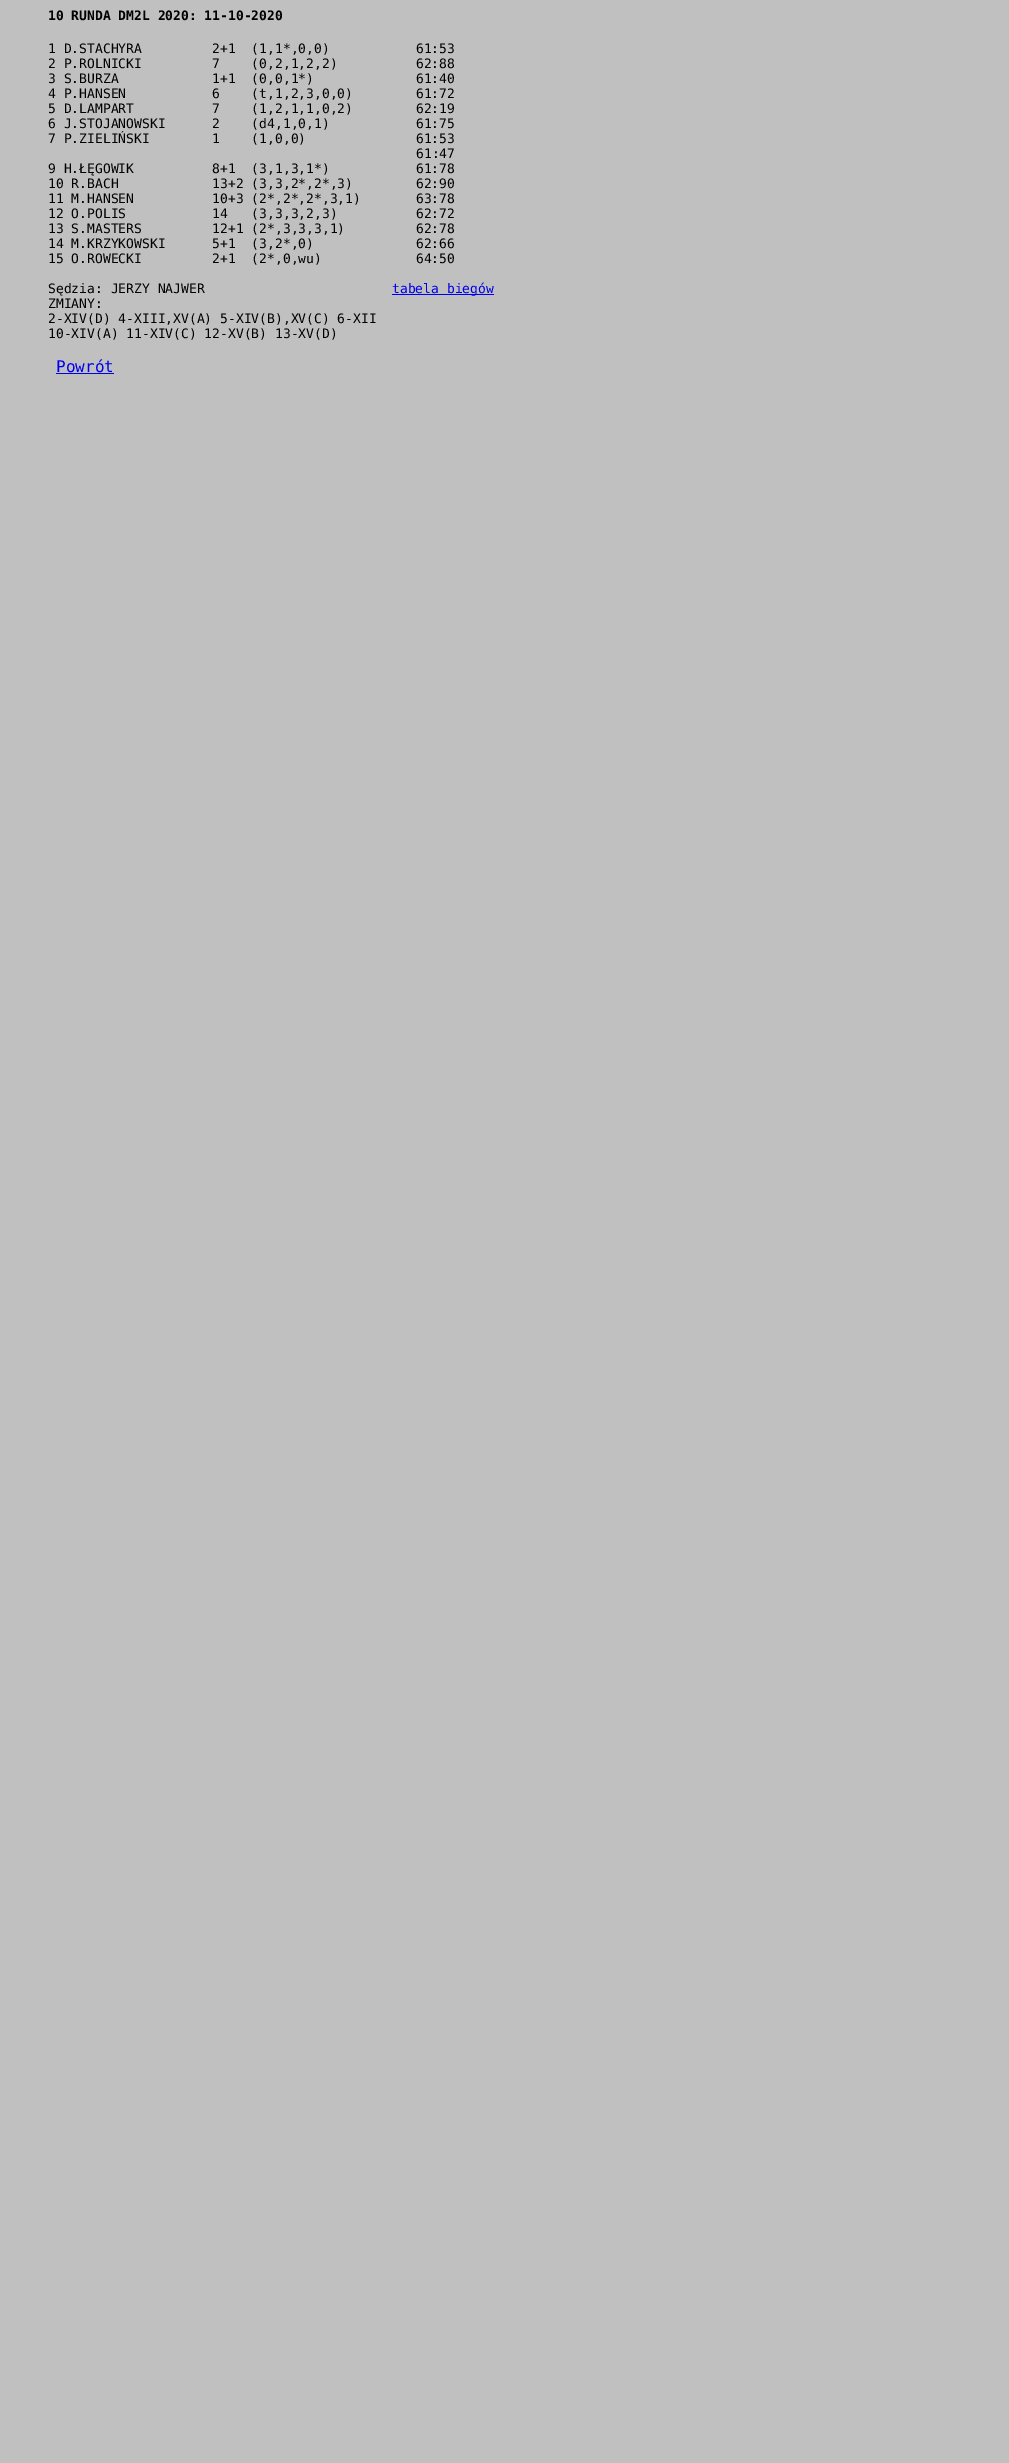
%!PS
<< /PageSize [1009 2463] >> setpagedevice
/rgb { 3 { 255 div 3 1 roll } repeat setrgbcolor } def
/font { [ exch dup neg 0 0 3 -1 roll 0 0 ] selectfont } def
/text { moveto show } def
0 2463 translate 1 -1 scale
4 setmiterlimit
192 192 192 rgb
0 0 1009 2463 rectfill
0 0 238 rgb
392 294 102 1 rectfill
56 373 58 1 rectfill
/DejaVuSansMono-Bold 13 font
0 0 0 rgb
(10 RUNDA DM2L 2020: 11-10-2020) 48 20 text
/DejaVuSansMono-Regular 13 font
(1 D.STACHYRA         2+1  \(1,1*,0,0\)           61:53) 48 53 text
(2 P.ROLNICKI         7    \(0,2,1,2,2\)          62:88) 48 68 text
(3 S.BURZA            1+1  \(0,0,1*\)             61:40) 48 83 text
(4 P.HANSEN           6    \(t,1,2,3,0,0\)        61:72) 48 98 text
(5 D.LAMPART          7    \(1,2,1,1,0,2\)        62:19) 48 113 text
(6 J.STOJANOWSKI      2    \(d4,1,0,1\)           61:75) 48 128 text
(7 P.ZIELIŃSKI        1    \(1,0,0\)              61:53) 48 143 text
(61:47) 416 158 text
(9 H.ŁĘGOWIK          8+1  \(3,1,3,1*\)           61:78) 48 173 text
(10 R.BACH            13+2 \(3,3,2*,2*,3\)        62:90) 48 188 text
(11 M.HANSEN          10+3 \(2*,2*,2*,3,1\)       63:78) 48 203 text
(12 O.POLIS           14   \(3,3,3,2,3\)          62:72) 48 218 text
(13 S.MASTERS         12+1 \(2*,3,3,3,1\)         62:78) 48 233 text
(14 M.KRZYKOWSKI      5+1  \(3,2*,0\)             62:66) 48 248 text
(15 O.ROWECKI         2+1  \(2*,0,wu\)            64:50) 48 263 text
(Sędzia: JERZY NAJWER) 48 293 text
0 0 238 rgb
(tabela biegów) 392 293 text
0 0 0 rgb
(ZMIANY:) 48 308 text
(2-XIV\(D\) 4-XIII,XV\(A\) 5-XIV\(B\),XV\(C\) 6-XII) 48 323 text
(10-XIV\(A\) 11-XIV\(C\) 12-XV\(B\) 13-XV\(D\)) 48 338 text
/DejaVuSansMono-Regular 16 font
0 0 238 rgb
(Powrót) 56 372 text
showpage
